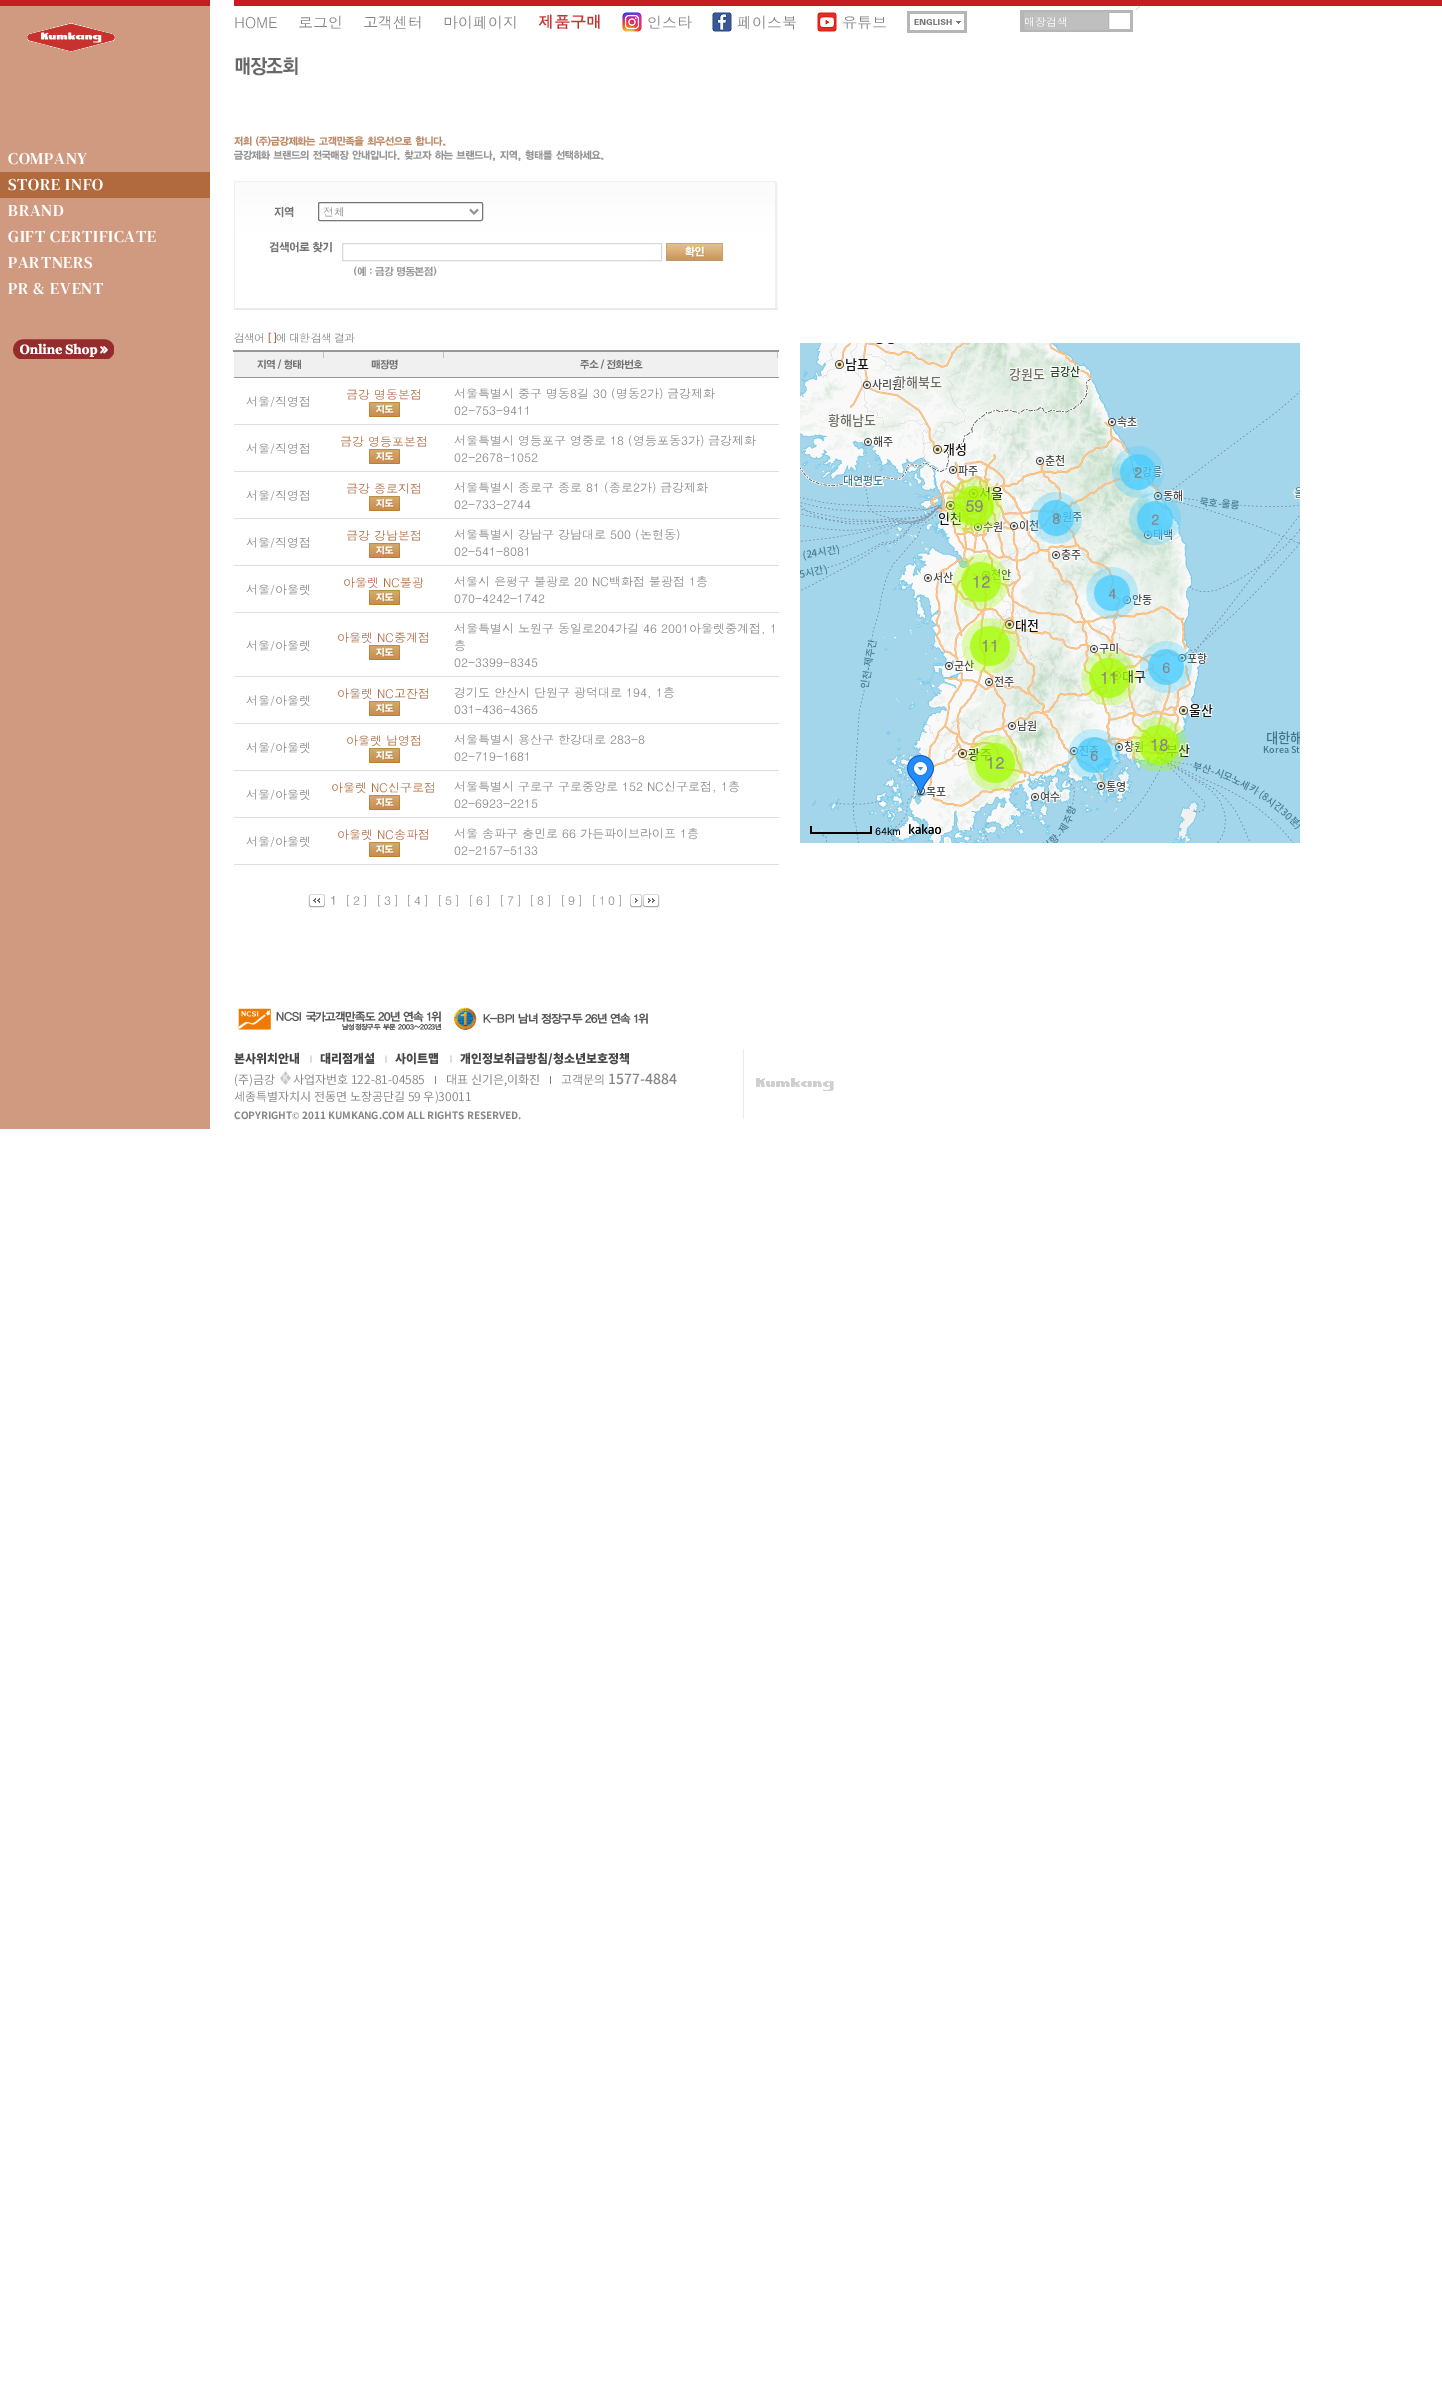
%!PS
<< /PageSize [1442 2404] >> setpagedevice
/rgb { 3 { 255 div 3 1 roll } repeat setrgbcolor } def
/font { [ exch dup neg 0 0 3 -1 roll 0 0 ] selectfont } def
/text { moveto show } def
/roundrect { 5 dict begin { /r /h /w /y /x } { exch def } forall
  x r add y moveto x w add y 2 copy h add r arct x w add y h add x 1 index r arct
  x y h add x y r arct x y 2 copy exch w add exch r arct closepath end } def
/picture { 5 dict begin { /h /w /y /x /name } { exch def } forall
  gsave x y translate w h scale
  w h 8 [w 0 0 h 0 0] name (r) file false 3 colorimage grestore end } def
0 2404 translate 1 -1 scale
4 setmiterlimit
255 255 255 rgb
0 0 1442 2404 rectfill
208 154 129 rgb
0 6 210 1123 rectfill
(img_01.rgb) 27 23 88 29 picture
(img_02.rgb) 1136 6 4 4 picture
(img_03.rgb) 622 12 20 20 picture
(img_04.rgb) 712 12 20 20 picture
(img_05.rgb) 817 12 20 20 picture
(img_06.rgb) 907 11 60 22 picture
(img_07.rgb) 1020 10 113 22 picture
191 191 191 rgb
1023.5 11.5 moveto 85 0 rlineto 0 19 rlineto -85 0 rlineto closepath gsave fill grestore
182 182 182 rgb
stroke
199 29 34 rgb
0 0 210 6 rectfill
176 106 62 rgb
0 172 210 26 rectfill
(img_08.rgb) 13 339 101 20 picture
199 29 34 rgb
234 0 1208 6 rectfill
(img_09.rgb) 235 57 63 19 picture
(img_10.rgb) 234 136 370 25 picture
(img_11.rgb) 234 181 544 127 picture
234 234 234 rgb
234 308 544 2 rectfill
(img_12.rgb) 274 206 20 12 picture
255 255 255 rgb
318.5 202.5 164 18 1.5 roundrect gsave fill grestore
118 118 118 rgb
stroke
148 148 148 rgb
2 setlinewidth
470 209.5 moveto 4 4 rlineto 4 -4 rlineto stroke
(img_13.rgb) 269 242 63 11 picture
217 217 217 rgb
1 setlinewidth
342.5 243.5 319 17 rectstroke
(img_14.rgb) 666 243 57 18 picture
(img_15.rgb) 354 266 83 11 picture
240 240 240 rgb
234 352 544 25 rectfill
195 195 195 rgb
777 352 1 6 rectfill
151 151 151 rgb
234 377 545 1 rectfill
233 350 546 2 rectfill
(img_16.rgb) 580 359 63 11 picture
195 195 195 rgb
323 352 1 6 rectfill
(img_17.rgb) 257 359 44 11 picture
443 352 1 6 rectfill
(img_18.rgb) 371 359 27 11 picture
(img_19.rgb) 369 402 31 15 picture
222 222 222 rgb
234 424 545 1 rectfill
(img_19.rgb) 369 449 31 15 picture
234 471 545 1 rectfill
(img_19.rgb) 369 496 31 15 picture
234 518 545 1 rectfill
(img_19.rgb) 369 543 31 15 picture
234 565 545 1 rectfill
(img_19.rgb) 369 590 31 15 picture
234 612 545 1 rectfill
(img_19.rgb) 369 645 31 15 picture
234 676 545 1 rectfill
(img_19.rgb) 369 701 31 15 picture
234 723 545 1 rectfill
(img_19.rgb) 369 748 31 15 picture
234 770 545 1 rectfill
(img_19.rgb) 369 795 31 15 picture
234 817 545 1 rectfill
(img_19.rgb) 369 842 31 15 picture
234 864 545 1 rectfill
(img_20.rgb) 308 894 17 14 picture
(img_21.rgb) 630 894 13 14 picture
(img_22.rgb) 643 894 17 14 picture
(img_23.rgb) 238 1007 410 24 picture
226 226 226 rgb
240 1053 1 6 rectfill
326 1053 1 6 rectfill
401 1053 1 6 rectfill
(img_24.rgb) 280 1071 11 14 picture
133 133 133 rgb
435 1076 1 8 rectfill
550 1076 1 8 rectfill
234 234 234 rgb
743 1049 1 70 rectfill
(img_25.rgb) 756 1078 78 13 picture
(img_26.rgb) 800 343 207 138 picture
(img_27.rgb) 1007 343 256 138 picture
(img_28.rgb) 1263 343 37 138 picture
(img_29.rgb) 800 481 207 256 picture
(img_30.rgb) 1007 481 256 256 picture
(img_31.rgb) 1263 481 37 256 picture
(img_32.rgb) 800 737 207 106 picture
(img_33.rgb) 1007 737 256 106 picture
(img_34.rgb) 1263 737 37 106 picture
(img_35.rgb) 1112 446 52 52 picture
(img_36.rgb) 946 478 56 55 picture
(img_37.rgb) 1030 492 52 52 picture
(img_38.rgb) 1129 493 52 52 picture
(img_39.rgb) 953 554 56 55 picture
(img_40.rgb) 1086 567 52 52 picture
(img_41.rgb) 962 618 56 55 picture
(img_42.rgb) 1140 641 52 52 picture
(img_43.rgb) 1081 650 56 55 picture
(img_44.rgb) 1131 717 56 55 picture
(img_45.rgb) 907 755 27 42 picture
(img_46.rgb) 967 735 56 55 picture
(img_47.rgb) 1068 729 52 52 picture
0 0 0 rgb
870 826 2 8 rectfill
810 832 62 2 rectfill
810 826 2 8 rectfill
(img_48.rgb) 909 824 32 10 picture
/Dotum-Regular 15 font
133 133 133 rgb
(HOME) 234 28 text
(로그인) 298 28 text
(고객센터) 363 28 text
(마이페이지) 443 28 text
/Dotum-Bold 16 font
200 50 46 rgb
(제품구매) 538 28 text
/Dotum-Regular 15 font
133 133 133 rgb
(인스타) 647 28 text
(페이스북) 737 28 text
(유튜브) 842 28 text
/Dotum-Regular 11 font
255 255 255 rgb
(매장검색) 1024 26 text
/DMSerifText-Regular 16.5 font
8 164 moveto 0.75 0 (COMPANY) ashow
8 190 moveto 0.75 0 (STORE INFO) ashow
8 216 moveto 0.75 0 (BRAND) ashow
8 242 moveto 0.75 0 (GIFT CERTIFICATE) ashow
8 268 moveto 0.75 0 (PARTNERS) ashow
8 294 moveto 0.75 0 (PR & EVENT) ashow
/Dotum-Regular 11 font
148 148 148 rgb
(전체) 323 216 text
133 133 133 rgb
234 342 moveto -1 0 (검색어) ashow
/Dotum-Bold 11 font
177 106 62 rgb
267 342 moveto -1 0 ([]) ashow
/Dotum-Regular 11 font
133 133 133 rgb
276 342 moveto -1 0 (에 대한 검색 결과) ashow
/Dotum-Regular 12 font
177 106 62 rgb
(금강 명동본점) 346 399 text
133 133 133 rgb
(서울특별시 중구 명동8길 30 \(명동2가\) 금강제화) 454 398 text
(02-753-9411) 454 415 text
(서울/직영점) 246 406 text
(서울/직영점) 246 453 text
177 106 62 rgb
(금강 영등포본점) 340 446 text
133 133 133 rgb
(서울특별시 영등포구 영중로 18 \(영등포동3가\) 금강제화) 454 445 text
(02-2678-1052) 454 462 text
177 106 62 rgb
(금강 종로지점) 346 493 text
133 133 133 rgb
(서울특별시 종로구 종로 81 \(종로2가\) 금강제화) 454 492 text
(02-733-2744) 454 509 text
(서울/직영점) 246 500 text
177 106 62 rgb
(금강 강남본점) 346 540 text
133 133 133 rgb
(서울특별시 강남구 강남대로 500 \(논현동\)) 454 539 text
(02-541-8081) 454 556 text
(서울/직영점) 246 547 text
(서울/아울렛) 246 594 text
177 106 62 rgb
(아울렛 NC불광) 343 587 text
133 133 133 rgb
(서울시 은평구 불광로 20 NC백화점 불광점 1층) 454 586 text
(070-4242-1742) 454 603 text
177 106 62 rgb
(아울렛 NC중계점) 337 642 text
133 133 133 rgb
(서울특별시 노원구 동일로204가길 46 2001아울렛중계점, 1) 454 633 text
(층) 454 650 text
(02-3399-8345) 454 667 text
(서울/아울렛) 246 650 text
(서울/아울렛) 246 705 text
177 106 62 rgb
(아울렛 NC고잔점) 337 698 text
133 133 133 rgb
(경기도 안산시 단원구 광덕대로 194, 1층) 454 697 text
(031-436-4365) 454 714 text
(서울/아울렛) 246 752 text
177 106 62 rgb
(아울렛 남영점) 346 745 text
133 133 133 rgb
(서울특별시 용산구 한강대로 283-8) 454 744 text
(02-719-1681) 454 761 text
(서울/아울렛) 246 799 text
177 106 62 rgb
(아울렛 NC신구로점) 331 792 text
133 133 133 rgb
(서울특별시 구로구 구로중앙로 152 NC신구로점, 1층) 454 791 text
(02-6923-2215) 454 808 text
(서울/아울렛) 246 846 text
177 106 62 rgb
(아울렛 NC송파점) 337 839 text
133 133 133 rgb
(서울 송파구 충민로 66 가든파이브라이프 1층) 454 838 text
(02-2157-5133) 454 855 text
/Dotum-Bold 12 font
141 141 141 rgb
330 905 moveto 2 0 (1) ashow
/Dotum-Regular 12 font
345 905 moveto 2 0 ([2]) ashow
376 905 moveto 2 0 ([3]) ashow
406 905 moveto 2 0 ([4]) ashow
437 905 moveto 2 0 ([5]) ashow
468 905 moveto 2 0 ([6]) ashow
499 905 moveto 2 0 ([7]) ashow
529 905 moveto 2 0 ([8]) ashow
560 905 moveto 2 0 ([9]) ashow
591 905 moveto 2 0 ([10]) ashow
/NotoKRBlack-Black 12 font
70 70 70 rgb
(본사위치안내) 234 1063 text
/Dotum-Regular 8 font
133 133 133 rgb
(|) 309 1062 text
/NotoKRBlack-Black 12 font
70 70 70 rgb
(대리점개설) 320 1063 text
/Dotum-Regular 8 font
133 133 133 rgb
(|) 384 1062 text
/NotoKRBlack-Black 12 font
70 70 70 rgb
(사이트맵) 395 1063 text
/Dotum-Regular 8 font
133 133 133 rgb
(|) 449 1062 text
/NotoKRBlack-Black 12 font
70 70 70 rgb
(개인정보취급방침/청소년보호정책) 460 1063 text
/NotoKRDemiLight-Light 12 font
133 133 133 rgb
(\(주\)금강) 234 1084 text
(사업자번호 122-81-04585) 293 1084 text
(대표 신기은,이화진) 446 1084 text
(고객문의) 561 1084 text
/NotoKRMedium-Medium 14 font
(1577-4884) 608 1084 text
/NotoKRDemiLight-Light 12 font
(세종특별자치시 전동면 노장공단길 59 우\)30011) 234 1101 text
/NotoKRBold-Bold 10 font
(COPYRIGHT) 234 1119 text
/LiberationSerif-Bold 10 font
(©) 292 1119 text
/NotoKRBold-Bold 10 font
(2011 KUMKANG.COM ALL RIGHTS RESERVED.) 302 1119 text
/Dotum-Bold 14 font
(2) 1134 478 text
/Dotum-Bold 16 font
(59) 965 512 text
/Dotum-Bold 14 font
(8) 1052 524 text
(2) 1151 525 text
/Dotum-Bold 16 font
(12) 972 588 text
/Dotum-Bold 14 font
(4) 1108 599 text
/Dotum-Bold 16 font
(11) 981 652 text
/Dotum-Bold 14 font
(6) 1162 673 text
/Dotum-Bold 16 font
(11) 1100 684 text
(18) 1150 751 text
(12) 986 769 text
/Dotum-Bold 14 font
(6) 1090 761 text
/Dotum-Bold 10 font
0 0 0 rgb
(64km) 875 835 text
showpage
